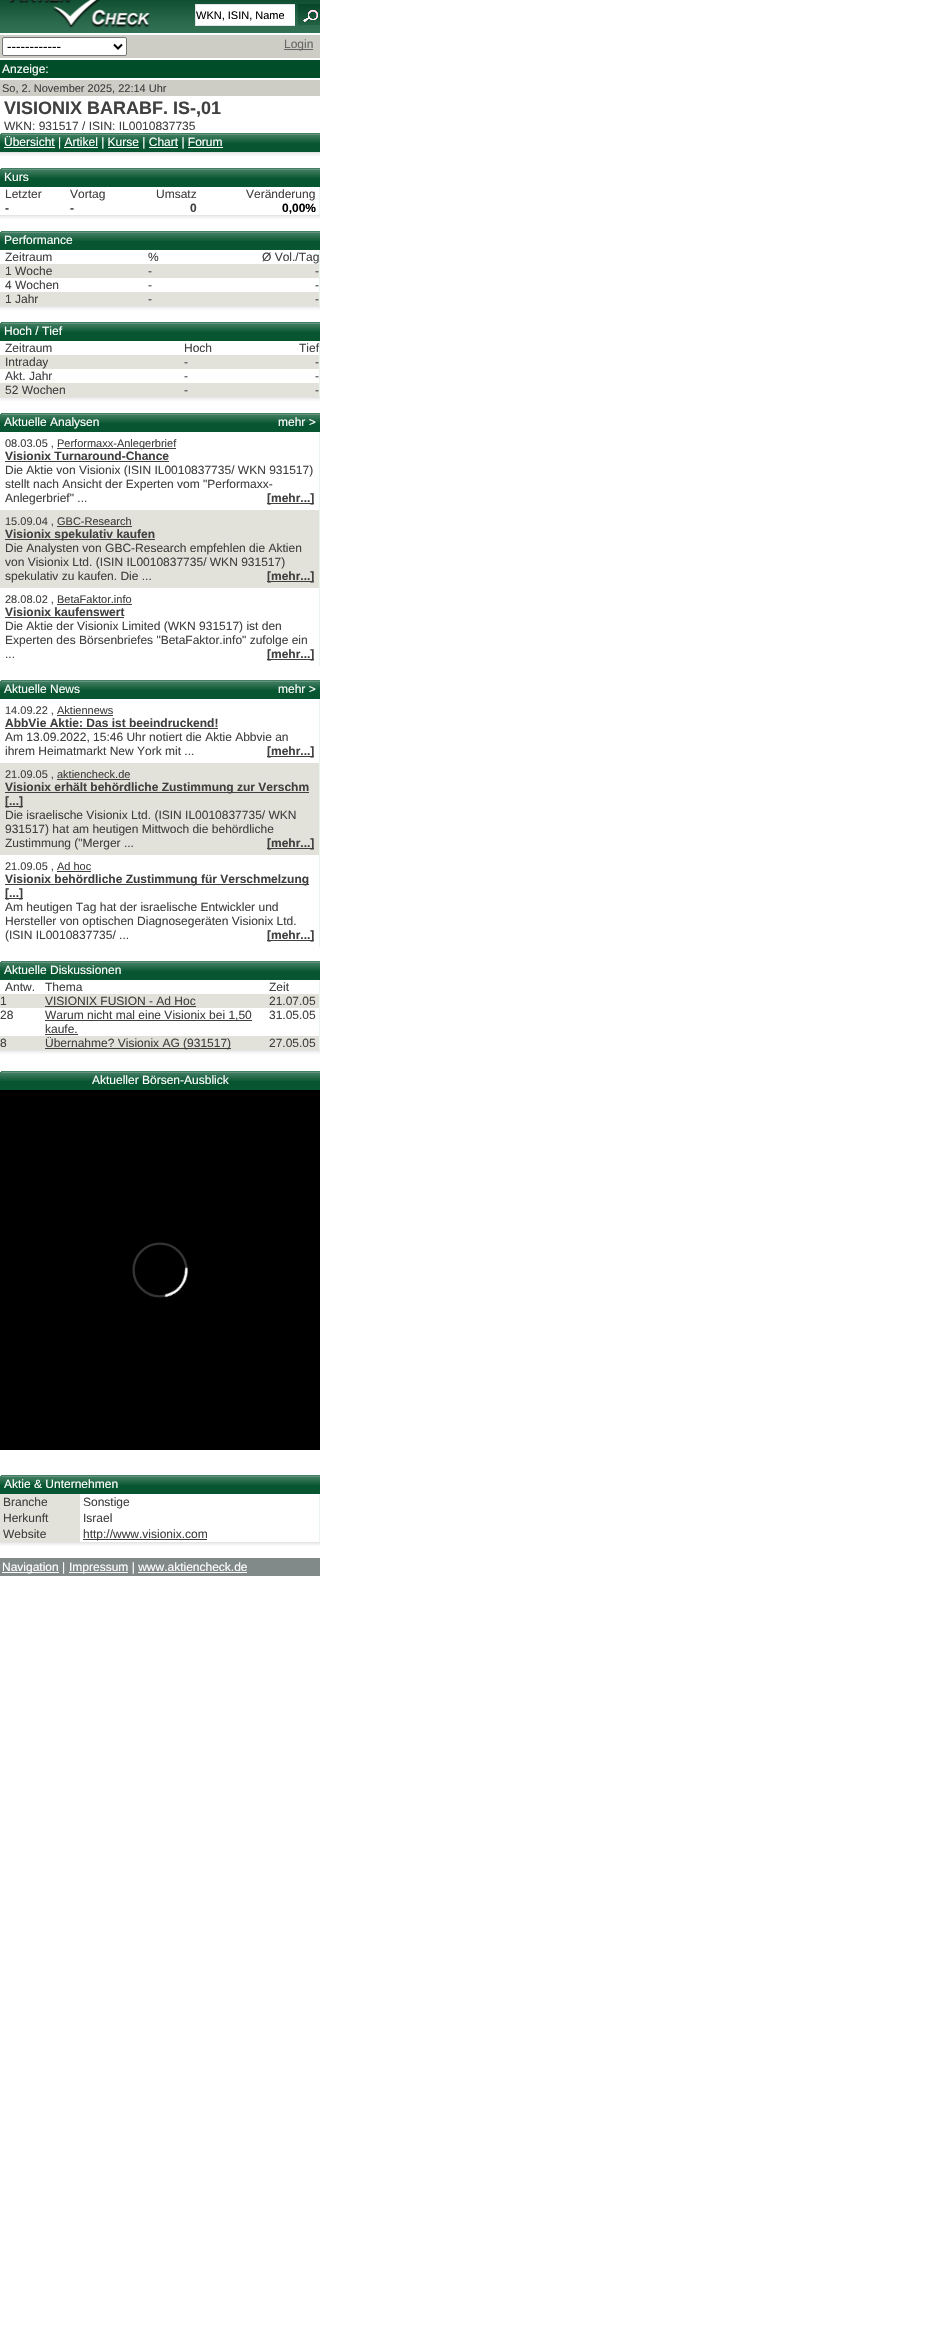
#include "include/core/SkBlurTypes.h"
#include "include/core/SkCanvas.h"
#include "include/core/SkData.h"
#include "include/core/SkFont.h"
#include "include/core/SkFontMgr.h"
#include "include/core/SkImage.h"
#include "include/core/SkMaskFilter.h"
#include "include/core/SkPaint.h"
#include "include/core/SkPathBuilder.h"
#include "include/core/SkTextBlob.h"
#include "include/effects/SkDashPathEffect.h"
#include "include/effects/SkGradientShader.h"
#include "include/utils/SkParsePath.h"

extern sk_sp<SkFontMgr> fontMgr;

static SkFont font(const char* family, int weight, float size, bool italic = false) {
    SkFontStyle style(weight, SkFontStyle::kNormal_Width,
        italic ? SkFontStyle::kItalic_Slant : SkFontStyle::kUpright_Slant);
    SkFont result(fontMgr->matchFamilyStyle(family, style), size);
    result.setSubpixel(true);
    return result;
}

static void drawLabel(SkCanvas* canvas, const char* s, float x, float y, const SkFont& font, SkColor color) {
    SkPaint ink(SkColor4f::FromColor(color));
    ink.setAntiAlias(true);
    canvas->drawString(s, x, y, font, ink);
}

static void fillRect(SkCanvas* canvas, float x, float y, float w, float h, SkColor color) {
    SkPaint ink(SkColor4f::FromColor(color));
    ink.setAntiAlias(true);
    canvas->drawRect(SkRect::MakeXYWH(x, y, w, h), ink);
}

static void drawPhoto(SkCanvas* canvas, const char* path, float x, float y, float w, float h) {
    auto image = SkImages::DeferredFromEncodedData(SkData::MakeFromFileName(path));
    canvas->drawImageRect(image, SkRect::MakeXYWH(x, y, w, h), SkSamplingOptions());
}

static SkPath parsePath(const char* data, bool evenOdd = false) {
    SkPath result = *SkParsePath::FromSVGString(data);
    if (evenOdd) result.setFillType(SkPathFillType::kEvenOdd);
    return result;
}

void draw(SkCanvas* canvas) {
    SkPaint paint;
    paint.setAntiAlias(true);
    canvas->clear(0xFFFFFFFF);
    drawPhoto(canvas, "assets/img1.png", 0, 0, 320, 33);
    drawPhoto(canvas, "assets/img2.png", 9, 0, 141, 28);
    fillRect(canvas, 196, 5, 99, 20, 0xFFFFFFFF);
    fillRect(canvas, 195, 4, 100, 1, 0xFFE2E3EA);
    fillRect(canvas, 195, 25, 100, 1, 0xFFE2E3EA);
    fillRect(canvas, 195, 4, 1, 22, 0xFFE2E3EA);
    SkFont font1 = font("Liberation Sans", 400, 11);
    drawLabel(canvas, "WKN, ISIN, Name", 196, 19, font1, 0xFF000000);
    drawPhoto(canvas, "assets/img3.png", 298, 4, 22, 21);
    fillRect(canvas, 0, 35, 320, 23, 0xFFCDCDC5);
    paint.setColor(0xFFFFFFFF);
    canvas->drawRoundRect(SkRect::MakeXYWH(2.5f, 37.5f, 124, 18), 1.5f, 1.5f, paint);
    paint.setStroke(true);
    paint.setStrokeWidth(1);
    paint.setColor(0xFF767676);
    canvas->drawRoundRect(SkRect::MakeXYWH(2.5f, 37.5f, 124, 18), 1.5f, 1.5f, paint);
    paint.setStrokeWidth(2);
    paint.setColor(0xFF000000);
    canvas->drawPath(parsePath("M114 44.5L118 48.5L122 44.5"), paint);
    SkFont font2 = font("Liberation Sans", 400, 13.5f);
    drawLabel(canvas, "------------", 7, 51, font2, 0xFF000000);
    fillRect(canvas, 284, 49, 29, 1, 0xFF666666);
    SkFont font3 = font("Liberation Sans", 400, 12);
    drawLabel(canvas, "Login", 284, 48, font3, 0xFF666666);
    fillRect(canvas, 0, 60, 320, 18, 0xFF004E29);
    drawLabel(canvas, "Anzeige:", 2, 73, font3, 0xFFFFFFFF);
    fillRect(canvas, 0, 80, 320, 16, 0xFFCDCDC5);
    drawLabel(canvas, "So, 2. November 2025, 22:14 Uhr", 2, 92, font1, 0xFF404040);
    drawPhoto(canvas, "assets/img4.png", 0, 152, 320, 4);
    SkFont font4 = font("Liberation Sans", 700, 18);
    drawLabel(canvas, "VISIONIX BARABF. IS-,01", 4, 114, font4, 0xFF404040);
    drawLabel(canvas, "WKN: 931517 / ISIN: IL0010837735", 4, 130, font3, 0xFF404040);
    fillRect(canvas, 0, 143, 320, 9, 0xFF085631);
    drawPhoto(canvas, "assets/img5.png", 0, 133, 320, 10);
    fillRect(canvas, 4, 147, 51, 1, 0xFFFFFFFF);
    drawLabel(canvas, "Übersicht | Artikel | Kurse | Chart | Forum", 4, 146, font3, 0xFFFFFFFF);
    fillRect(canvas, 64, 147, 34, 1, 0xFFFFFFFF);
    fillRect(canvas, 108, 147, 31, 1, 0xFFFFFFFF);
    fillRect(canvas, 149, 147, 29, 1, 0xFFFFFFFF);
    fillRect(canvas, 188, 147, 35, 1, 0xFFFFFFFF);
    drawPhoto(canvas, "assets/img4.png", 0, 215, 320, 4);
    fillRect(canvas, 0, 178, 320, 9, 0xFF085631);
    drawPhoto(canvas, "assets/img5.png", 0, 168, 320, 10);
    drawLabel(canvas, "Kurs", 4, 181, font3, 0xFFFFFFFF);
    fillRect(canvas, 319, 187, 1, 28, 0xFFEBF5ED);
    drawLabel(canvas, "Letzter", 5, 198, font3, 0xFF404040);
    drawLabel(canvas, "Vortag", 70, 198, font3, 0xFF404040);
    drawLabel(canvas, "Umsatz", 156, 198, font3, 0xFF404040);
    drawLabel(canvas, "Veränderung", 246, 198, font3, 0xFF404040);
    SkFont font5 = font("Liberation Sans", 700, 12);
    drawLabel(canvas, "-", 5, 212, font5, 0xFF404040);
    drawLabel(canvas, "-", 70, 212, font5, 0xFF404040);
    drawLabel(canvas, "0", 190, 212, font5, 0xFF404040);
    drawLabel(canvas, "0,00%", 282, 212, font5, 0xFF000000);
    drawPhoto(canvas, "assets/img4.png", 0, 306, 320, 4);
    fillRect(canvas, 0, 241, 320, 9, 0xFF085631);
    drawPhoto(canvas, "assets/img5.png", 0, 231, 320, 10);
    drawLabel(canvas, "Performance", 4, 244, font3, 0xFFFFFFFF);
    fillRect(canvas, 319, 250, 1, 56, 0xFFEBF5ED);
    drawLabel(canvas, "Zeitraum", 5, 261, font3, 0xFF404040);
    drawLabel(canvas, "%", 148, 261, font3, 0xFF404040);
    drawLabel(canvas, "Ø Vol./Tag", 262, 261, font3, 0xFF404040);
    fillRect(canvas, 0, 264, 319, 14, 0xFFE3E2DA);
    drawLabel(canvas, "1 Woche", 5, 275, font3, 0xFF404040);
    drawLabel(canvas, "-", 148, 275, font3, 0xFF404040);
    drawLabel(canvas, "-", 315, 275, font3, 0xFF404040);
    drawLabel(canvas, "4 Wochen", 5, 289, font3, 0xFF404040);
    drawLabel(canvas, "-", 148, 289, font3, 0xFF404040);
    drawLabel(canvas, "-", 315, 289, font3, 0xFF404040);
    fillRect(canvas, 0, 292, 319, 14, 0xFFE3E2DA);
    drawLabel(canvas, "1 Jahr", 5, 303, font3, 0xFF404040);
    drawLabel(canvas, "-", 148, 303, font3, 0xFF404040);
    drawLabel(canvas, "-", 315, 303, font3, 0xFF404040);
    drawPhoto(canvas, "assets/img4.png", 0, 397, 320, 4);
    fillRect(canvas, 0, 332, 320, 9, 0xFF085631);
    drawPhoto(canvas, "assets/img5.png", 0, 322, 320, 10);
    drawLabel(canvas, "Hoch / Tief", 4, 335, font3, 0xFFFFFFFF);
    fillRect(canvas, 319, 341, 1, 56, 0xFFEBF5ED);
    drawLabel(canvas, "Zeitraum", 5, 352, font3, 0xFF404040);
    drawLabel(canvas, "Hoch", 184, 352, font3, 0xFF404040);
    drawLabel(canvas, "Tief", 299, 352, font3, 0xFF404040);
    fillRect(canvas, 0, 355, 319, 14, 0xFFE3E2DA);
    drawLabel(canvas, "Intraday", 5, 366, font3, 0xFF404040);
    drawLabel(canvas, "-", 184, 366, font3, 0xFF404040);
    drawLabel(canvas, "-", 315, 366, font3, 0xFF404040);
    drawLabel(canvas, "Akt. Jahr", 5, 380, font3, 0xFF404040);
    drawLabel(canvas, "-", 184, 380, font3, 0xFF404040);
    drawLabel(canvas, "-", 315, 380, font3, 0xFF404040);
    fillRect(canvas, 0, 383, 319, 14, 0xFFE3E2DA);
    drawLabel(canvas, "52 Wochen", 5, 394, font3, 0xFF404040);
    drawLabel(canvas, "-", 184, 394, font3, 0xFF404040);
    drawLabel(canvas, "-", 315, 394, font3, 0xFF404040);
    fillRect(canvas, 0, 423, 320, 9, 0xFF085631);
    drawPhoto(canvas, "assets/img5.png", 0, 413, 320, 10);
    drawLabel(canvas, "Aktuelle Analysen", 4, 426, font3, 0xFFFFFFFF);
    drawLabel(canvas, "mehr >", 278, 426, font3, 0xFFFFFFFF);
    fillRect(canvas, 319, 432, 1, 234, 0xFFEBF5ED);
    drawLabel(canvas, "08.03.05 ,", 5, 447, font1, 0xFF404040);
    fillRect(canvas, 57, 448, 119, 1, 0xFF404040);
    drawLabel(canvas, "Performaxx-Anlegerbrief", 57, 447, font1, 0xFF404040);
    drawLabel(canvas, "Visionix Turnaround-Chance", 5, 460, font5, 0xFF404040);
    fillRect(canvas, 5, 461, 164, 1, 0xFF404040);
    drawLabel(canvas, "Die Aktie von Visionix (ISIN IL0010837735/ WKN 931517)", 5, 474, font3, 0xFF404040);
    drawLabel(canvas, "stellt nach Ansicht der Experten vom \"Performaxx-", 5, 488, font3, 0xFF404040);
    drawLabel(canvas, "Anlegerbrief\" ...", 5, 502, font3, 0xFF404040);
    fillRect(canvas, 267, 503, 47, 1, 0xFF404040);
    drawLabel(canvas, "[mehr...]", 267, 502, font5, 0xFF404040);
    fillRect(canvas, 0, 510, 319, 78, 0xFFE3E2DA);
    drawLabel(canvas, "15.09.04 , GBC-Research", 5, 525, font1, 0xFF404040);
    fillRect(canvas, 57, 526, 75, 1, 0xFF404040);
    fillRect(canvas, 5, 539, 150, 1, 0xFF404040);
    drawLabel(canvas, "Visionix spekulativ kaufen", 5, 538, font5, 0xFF404040);
    drawLabel(canvas, "Die Analysten von GBC-Research empfehlen die Aktien", 5, 552, font3, 0xFF404040);
    drawLabel(canvas, "von Visionix Ltd. (ISIN IL0010837735/ WKN 931517)", 5, 566, font3, 0xFF404040);
    drawLabel(canvas, "spekulativ zu kaufen. Die ...", 5, 580, font3, 0xFF404040);
    fillRect(canvas, 267, 581, 47, 1, 0xFF404040);
    drawLabel(canvas, "[mehr...]", 267, 580, font5, 0xFF404040);
    drawLabel(canvas, "28.08.02 , BetaFaktor.info", 5, 603, font1, 0xFF404040);
    fillRect(canvas, 57, 604, 75, 1, 0xFF404040);
    drawLabel(canvas, "Visionix kaufenswert", 5, 616, font5, 0xFF404040);
    fillRect(canvas, 5, 617, 119, 1, 0xFF404040);
    drawLabel(canvas, "Die Aktie der Visionix Limited (WKN 931517) ist den", 5, 630, font3, 0xFF404040);
    drawLabel(canvas, "Experten des Börsenbriefes \"BetaFaktor.info\" zufolge ein", 5, 644, font3, 0xFF404040);
    drawLabel(canvas, "...", 5, 658, font3, 0xFF404040);
    fillRect(canvas, 267, 659, 47, 1, 0xFF404040);
    drawLabel(canvas, "[mehr...]", 267, 658, font5, 0xFF404040);
    fillRect(canvas, 0, 690, 320, 9, 0xFF085631);
    drawPhoto(canvas, "assets/img5.png", 0, 680, 320, 10);
    drawLabel(canvas, "Aktuelle News", 4, 693, font3, 0xFFFFFFFF);
    drawLabel(canvas, "mehr >", 278, 693, font3, 0xFFFFFFFF);
    fillRect(canvas, 319, 699, 1, 248, 0xFFEBF5ED);
    drawLabel(canvas, "14.09.22 , Aktiennews", 5, 714, font1, 0xFF404040);
    fillRect(canvas, 57, 715, 56, 1, 0xFF404040);
    drawLabel(canvas, "AbbVie Aktie: Das ist beeindruckend!", 5, 727, font5, 0xFF404040);
    fillRect(canvas, 5, 728, 213, 1, 0xFF404040);
    drawLabel(canvas, "Am 13.09.2022, 15:46 Uhr notiert die Aktie Abbvie an", 5, 741, font3, 0xFF404040);
    drawLabel(canvas, "ihrem Heimatmarkt New York mit ...", 5, 755, font3, 0xFF404040);
    fillRect(canvas, 267, 756, 47, 1, 0xFF404040);
    drawLabel(canvas, "[mehr...]", 267, 755, font5, 0xFF404040);
    fillRect(canvas, 0, 763, 319, 92, 0xFFE3E2DA);
    drawLabel(canvas, "21.09.05 , aktiencheck.de", 5, 778, font1, 0xFF404040);
    fillRect(canvas, 57, 779, 73, 1, 0xFF404040);
    fillRect(canvas, 5, 792, 304, 1, 0xFF404040);
    drawLabel(canvas, "Visionix erhält behördliche Zustimmung zur Verschm", 5, 791, font5, 0xFF404040);
    fillRect(canvas, 5, 806, 18, 1, 0xFF404040);
    drawLabel(canvas, "[...]", 5, 805, font5, 0xFF404040);
    drawLabel(canvas, "Die israelische Visionix Ltd. (ISIN IL0010837735/ WKN", 5, 819, font3, 0xFF404040);
    drawLabel(canvas, "931517) hat am heutigen Mittwoch die behördliche", 5, 833, font3, 0xFF404040);
    drawLabel(canvas, "Zustimmung (\"Merger ...", 5, 847, font3, 0xFF404040);
    fillRect(canvas, 267, 848, 47, 1, 0xFF404040);
    drawLabel(canvas, "[mehr...]", 267, 847, font5, 0xFF404040);
    drawLabel(canvas, "21.09.05 , Ad hoc", 5, 870, font1, 0xFF404040);
    fillRect(canvas, 57, 871, 34, 1, 0xFF404040);
    fillRect(canvas, 5, 884, 304, 1, 0xFF404040);
    drawLabel(canvas, "Visionix behördliche Zustimmung für Verschmelzung", 5, 883, font5, 0xFF404040);
    fillRect(canvas, 5, 898, 18, 1, 0xFF404040);
    drawLabel(canvas, "[...]", 5, 897, font5, 0xFF404040);
    drawLabel(canvas, "Am heutigen Tag hat der israelische Entwickler und", 5, 911, font3, 0xFF404040);
    drawLabel(canvas, "Hersteller von optischen Diagnosegeräten Visionix Ltd.", 5, 925, font3, 0xFF404040);
    drawLabel(canvas, "(ISIN IL0010837735/ ...", 5, 939, font3, 0xFF404040);
    fillRect(canvas, 267, 940, 47, 1, 0xFF404040);
    drawLabel(canvas, "[mehr...]", 267, 939, font5, 0xFF404040);
    drawPhoto(canvas, "assets/img4.png", 0, 1050, 320, 4);
    fillRect(canvas, 0, 971, 320, 9, 0xFF085631);
    drawPhoto(canvas, "assets/img5.png", 0, 961, 320, 10);
    drawLabel(canvas, "Aktuelle Diskussionen", 4, 974, font3, 0xFFFFFFFF);
    fillRect(canvas, 319, 980, 1, 70, 0xFFEBF5ED);
    drawLabel(canvas, "Antw.", 5, 991, font3, 0xFF404040);
    drawLabel(canvas, "Thema", 45, 991, font3, 0xFF404040);
    drawLabel(canvas, "Zeit", 269, 991, font3, 0xFF404040);
    fillRect(canvas, 0, 994, 319, 14, 0xFFE3E2DA);
    drawLabel(canvas, "1", 0, 1005, font3, 0xFF404040);
    drawLabel(canvas, "VISIONIX FUSION - Ad Hoc", 45, 1005, font3, 0xFF404040);
    fillRect(canvas, 45, 1006, 151, 1, 0xFF404040);
    drawLabel(canvas, "21.07.05", 269, 1005, font3, 0xFF404040);
    drawLabel(canvas, "28", 0, 1019, font3, 0xFF404040);
    fillRect(canvas, 45, 1020, 207, 1, 0xFF404040);
    drawLabel(canvas, "Warum nicht mal eine Visionix bei 1,50", 45, 1019, font3, 0xFF404040);
    drawLabel(canvas, "kaufe.", 45, 1033, font3, 0xFF404040);
    fillRect(canvas, 45, 1034, 33, 1, 0xFF404040);
    drawLabel(canvas, "31.05.05", 269, 1019, font3, 0xFF404040);
    fillRect(canvas, 0, 1036, 319, 14, 0xFFE3E2DA);
    drawLabel(canvas, "8", 0, 1047, font3, 0xFF404040);
    fillRect(canvas, 45, 1048, 186, 1, 0xFF404040);
    drawLabel(canvas, "Übernahme? Visionix AG (931517)", 45, 1047, font3, 0xFF404040);
    drawLabel(canvas, "27.05.05", 269, 1047, font3, 0xFF404040);
    fillRect(canvas, 0, 1081, 320, 9, 0xFF085631);
    drawPhoto(canvas, "assets/img5.png", 0, 1071, 320, 10);
    drawLabel(canvas, "Aktueller Börsen-Ausblick", 92, 1084, font3, 0xFFFFFFFF);
    drawPhoto(canvas, "assets/img6.png", 0, 1090, 320, 360);
    drawPhoto(canvas, "assets/img4.png", 0, 1542, 320, 4);
    fillRect(canvas, 0, 1485, 320, 9, 0xFF085631);
    drawPhoto(canvas, "assets/img5.png", 0, 1475, 320, 10);
    drawLabel(canvas, "Aktie & Unternehmen", 4, 1488, font3, 0xFFFFFFFF);
    fillRect(canvas, 319, 1494, 1, 48, 0xFFEBF5ED);
    fillRect(canvas, 0, 1494, 80, 48, 0xFFE3E2DA);
    drawLabel(canvas, "Branche", 3, 1506, font3, 0xFF404040);
    drawLabel(canvas, "Sonstige", 83, 1506, font3, 0xFF404040);
    drawLabel(canvas, "Herkunft", 3, 1522, font3, 0xFF404040);
    drawLabel(canvas, "Israel", 83, 1522, font3, 0xFF404040);
    drawLabel(canvas, "Website", 3, 1538, font3, 0xFF404040);
    fillRect(canvas, 83, 1539, 124, 1, 0xFF404040);
    drawLabel(canvas, "http://www.visionix.com", 83, 1538, font3, 0xFF404040);
    fillRect(canvas, 0, 1558, 320, 18, 0xFF818A89);
    fillRect(canvas, 2, 1572, 57, 1, 0xFFFFFFFF);
    drawLabel(canvas, "Navigation |", 2, 1571, font3, 0xFFFFFFFF);
    fillRect(canvas, 69, 1572, 59, 1, 0xFFFFFFFF);
    drawLabel(canvas, "Impressum | www.aktiencheck.de", 69, 1571, font3, 0xFFFFFFFF);
    fillRect(canvas, 138, 1572, 109, 1, 0xFFFFFFFF);
}
